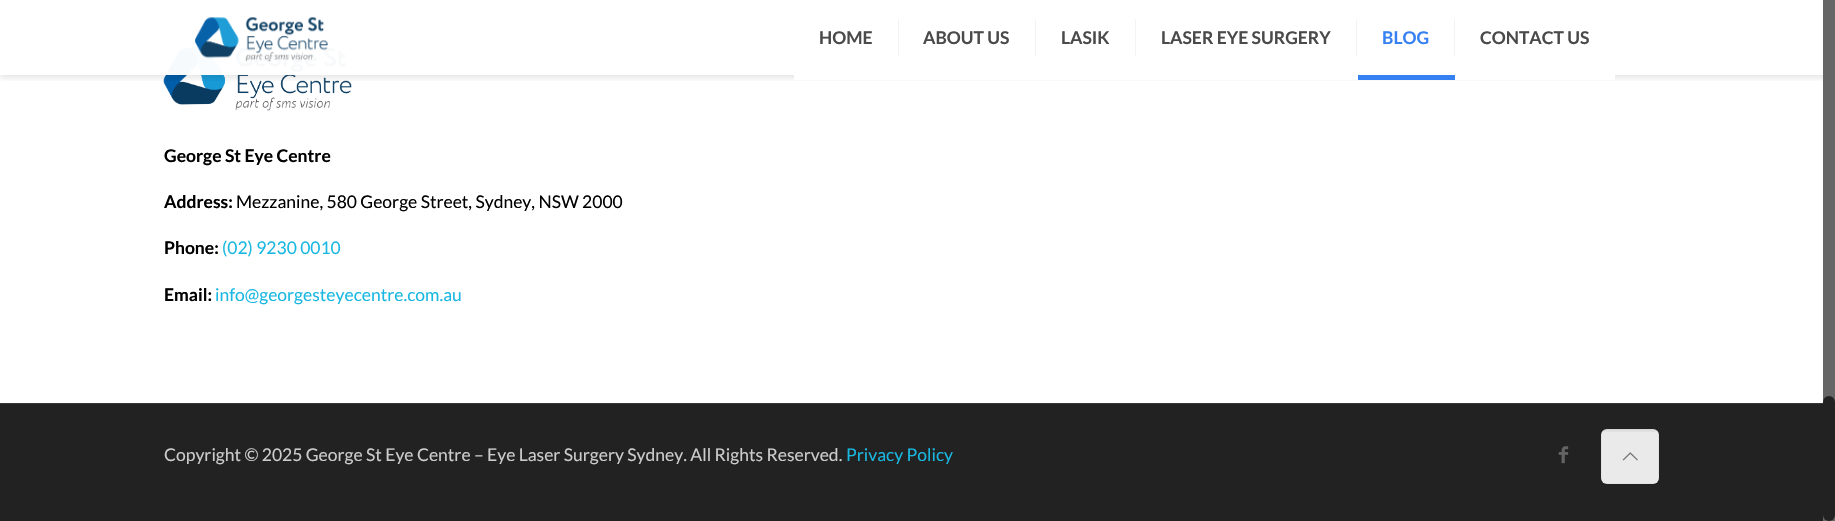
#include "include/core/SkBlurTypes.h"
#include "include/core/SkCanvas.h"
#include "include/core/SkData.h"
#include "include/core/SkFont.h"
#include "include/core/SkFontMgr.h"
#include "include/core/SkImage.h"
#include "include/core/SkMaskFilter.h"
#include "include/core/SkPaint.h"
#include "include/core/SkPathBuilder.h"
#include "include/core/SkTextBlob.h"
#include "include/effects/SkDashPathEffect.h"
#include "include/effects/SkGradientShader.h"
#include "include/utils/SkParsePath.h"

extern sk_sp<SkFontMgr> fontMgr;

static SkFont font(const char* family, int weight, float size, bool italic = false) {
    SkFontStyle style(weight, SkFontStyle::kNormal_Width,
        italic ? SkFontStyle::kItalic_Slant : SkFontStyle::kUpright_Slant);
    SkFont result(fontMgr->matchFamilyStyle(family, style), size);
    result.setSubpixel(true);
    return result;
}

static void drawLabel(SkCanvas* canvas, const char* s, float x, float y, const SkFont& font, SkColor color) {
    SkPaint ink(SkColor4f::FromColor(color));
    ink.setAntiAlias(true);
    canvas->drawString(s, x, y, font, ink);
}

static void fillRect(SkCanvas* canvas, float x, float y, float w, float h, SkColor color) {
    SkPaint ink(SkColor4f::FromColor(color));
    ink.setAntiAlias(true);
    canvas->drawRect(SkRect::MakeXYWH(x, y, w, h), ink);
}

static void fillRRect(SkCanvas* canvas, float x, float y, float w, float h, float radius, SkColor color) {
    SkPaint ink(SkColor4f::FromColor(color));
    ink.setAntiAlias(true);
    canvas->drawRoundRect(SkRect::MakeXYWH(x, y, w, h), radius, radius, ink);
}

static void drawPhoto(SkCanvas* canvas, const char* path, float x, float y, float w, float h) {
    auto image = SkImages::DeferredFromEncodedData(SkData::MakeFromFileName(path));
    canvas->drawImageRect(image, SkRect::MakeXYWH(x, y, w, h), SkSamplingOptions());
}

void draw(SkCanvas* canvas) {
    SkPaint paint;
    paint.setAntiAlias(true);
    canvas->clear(0xFFFCFCFC);
    fillRect(canvas, 1308, 0, 1, 4, 0xFFE8E8E8);
    fillRect(canvas, 1309, 0, 514, 4, 0xFFF9F9F9);
    fillRect(canvas, 0, 4, 1823, 399, 0xFFFFFFFF);
    drawPhoto(canvas, "assets/img2.png", 163, 47, 189, 64);
    canvas->save();
    canvas->clipRect(SkRect::MakeXYWH(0, 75, 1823, 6));
    paint.setColor(0x1A000000);
    paint.setMaskFilter(SkMaskFilter::MakeBlur(kNormal_SkBlurStyle, 3));
    canvas->drawRect(SkRect::MakeXYWH(0, 3, 1835, 75), paint);
    paint.setMaskFilter(nullptr);
    canvas->restore();
    fillRect(canvas, 0, 0, 1823, 75, 0xF7FFFFFF);
    drawPhoto(canvas, "assets/img1.png", 195, 17, 133, 45);
    fillRect(canvas, 898, 19, 1, 37, 0xFFF3F3F3);
    SkFont font1 = font("Lato", 700, 17.5f);
    drawLabel(canvas, "HOME", 819, 44, font1, 0xFF4A4A4A);
    fillRect(canvas, 794, 75, 564, 5, 0xFFFFFFFF);
    fillRect(canvas, 1035, 19, 1, 37, 0xFFF3F3F3);
    drawLabel(canvas, "ABOUT US", 923, 44, font1, 0xFF4A4A4A);
    fillRect(canvas, 1135, 19, 1, 37, 0xFFF3F3F3);
    drawLabel(canvas, "LASIK", 1061, 44, font1, 0xFF4A4A4A);
    fillRect(canvas, 1356, 19, 1, 37, 0xFFF3F3F3);
    drawLabel(canvas, "LASER EYE SURGERY", 1161, 44, font1, 0xFF4A4A4A);
    fillRect(canvas, 1454, 19, 1, 37, 0xFFF3F3F3);
    drawLabel(canvas, "BLOG", 1382, 44, font1, 0xFF3681F2);
    fillRect(canvas, 1358, 75, 97, 5, 0xFF3681F2);
    drawLabel(canvas, "CONTACT US", 1480, 44, font1, 0xFF4A4A4A);
    fillRect(canvas, 1455, 75, 160, 5, 0xFFFFFFFF);
    fillRect(canvas, 0, 404, 1823, 117, 0xFF222222);
    drawLabel(canvas, "George St Eye Centre", 164, 162, font1, 0xFF000000);
    drawLabel(canvas, "Address:", 164, 208, font1, 0xFF000000);
    SkFont font2 = font("Lato", 400, 17.5f);
    drawLabel(canvas, "Mezzanine, 580 George Street, Sydney, NSW 2000", 236, 208, font2, 0xFF000000);
    drawLabel(canvas, "Phone:", 164, 254, font1, 0xFF000000);
    drawLabel(canvas, "(02) 9230 0010", 222, 254, font2, 0xFF1AB8E1);
    drawLabel(canvas, "Email:", 164, 301, font1, 0xFF000000);
    drawLabel(canvas, "info@georgesteyecentre.com.au", 215, 301, font2, 0xFF1AB8E1);
    fillRect(canvas, 0, 403, 1823, 1, 0xFF383838);
    drawLabel(canvas, "Copyright © 2025 George St Eye Centre – Eye Laser Surgery Sydney. All Rights Reserved.", 164, 461, font2, 0xFFCCCCCC);
    drawLabel(canvas, "Privacy Policy", 846, 461, font2, 0xFF1AB8E1);
    drawPhoto(canvas, "assets/img3.png", 1558, 446, 11, 18);
    fillRRect(canvas, 1601, 429, 58, 55, 6, 0xFFF7F7F7);
    drawPhoto(canvas, "assets/img4.png", 1603, 429, 54, 3);
    paint.setStroke(true);
    paint.setStrokeWidth(1);
    paint.setColor(0x08000000);
    canvas->drawRect(SkRect::MakeXYWH(1601.5f, 429.5f, 57, 54), paint);
    fillRect(canvas, 1601, 429, 58, 55, 0x0D000000);
    drawPhoto(canvas, "assets/img5.png", 1622, 452, 16, 9);
    fillRect(canvas, 1823, 0, 12, 521, 0xFF666666);
    fillRRect(canvas, 1823, 396, 12, 125, 6, 0xFF222222);
}
